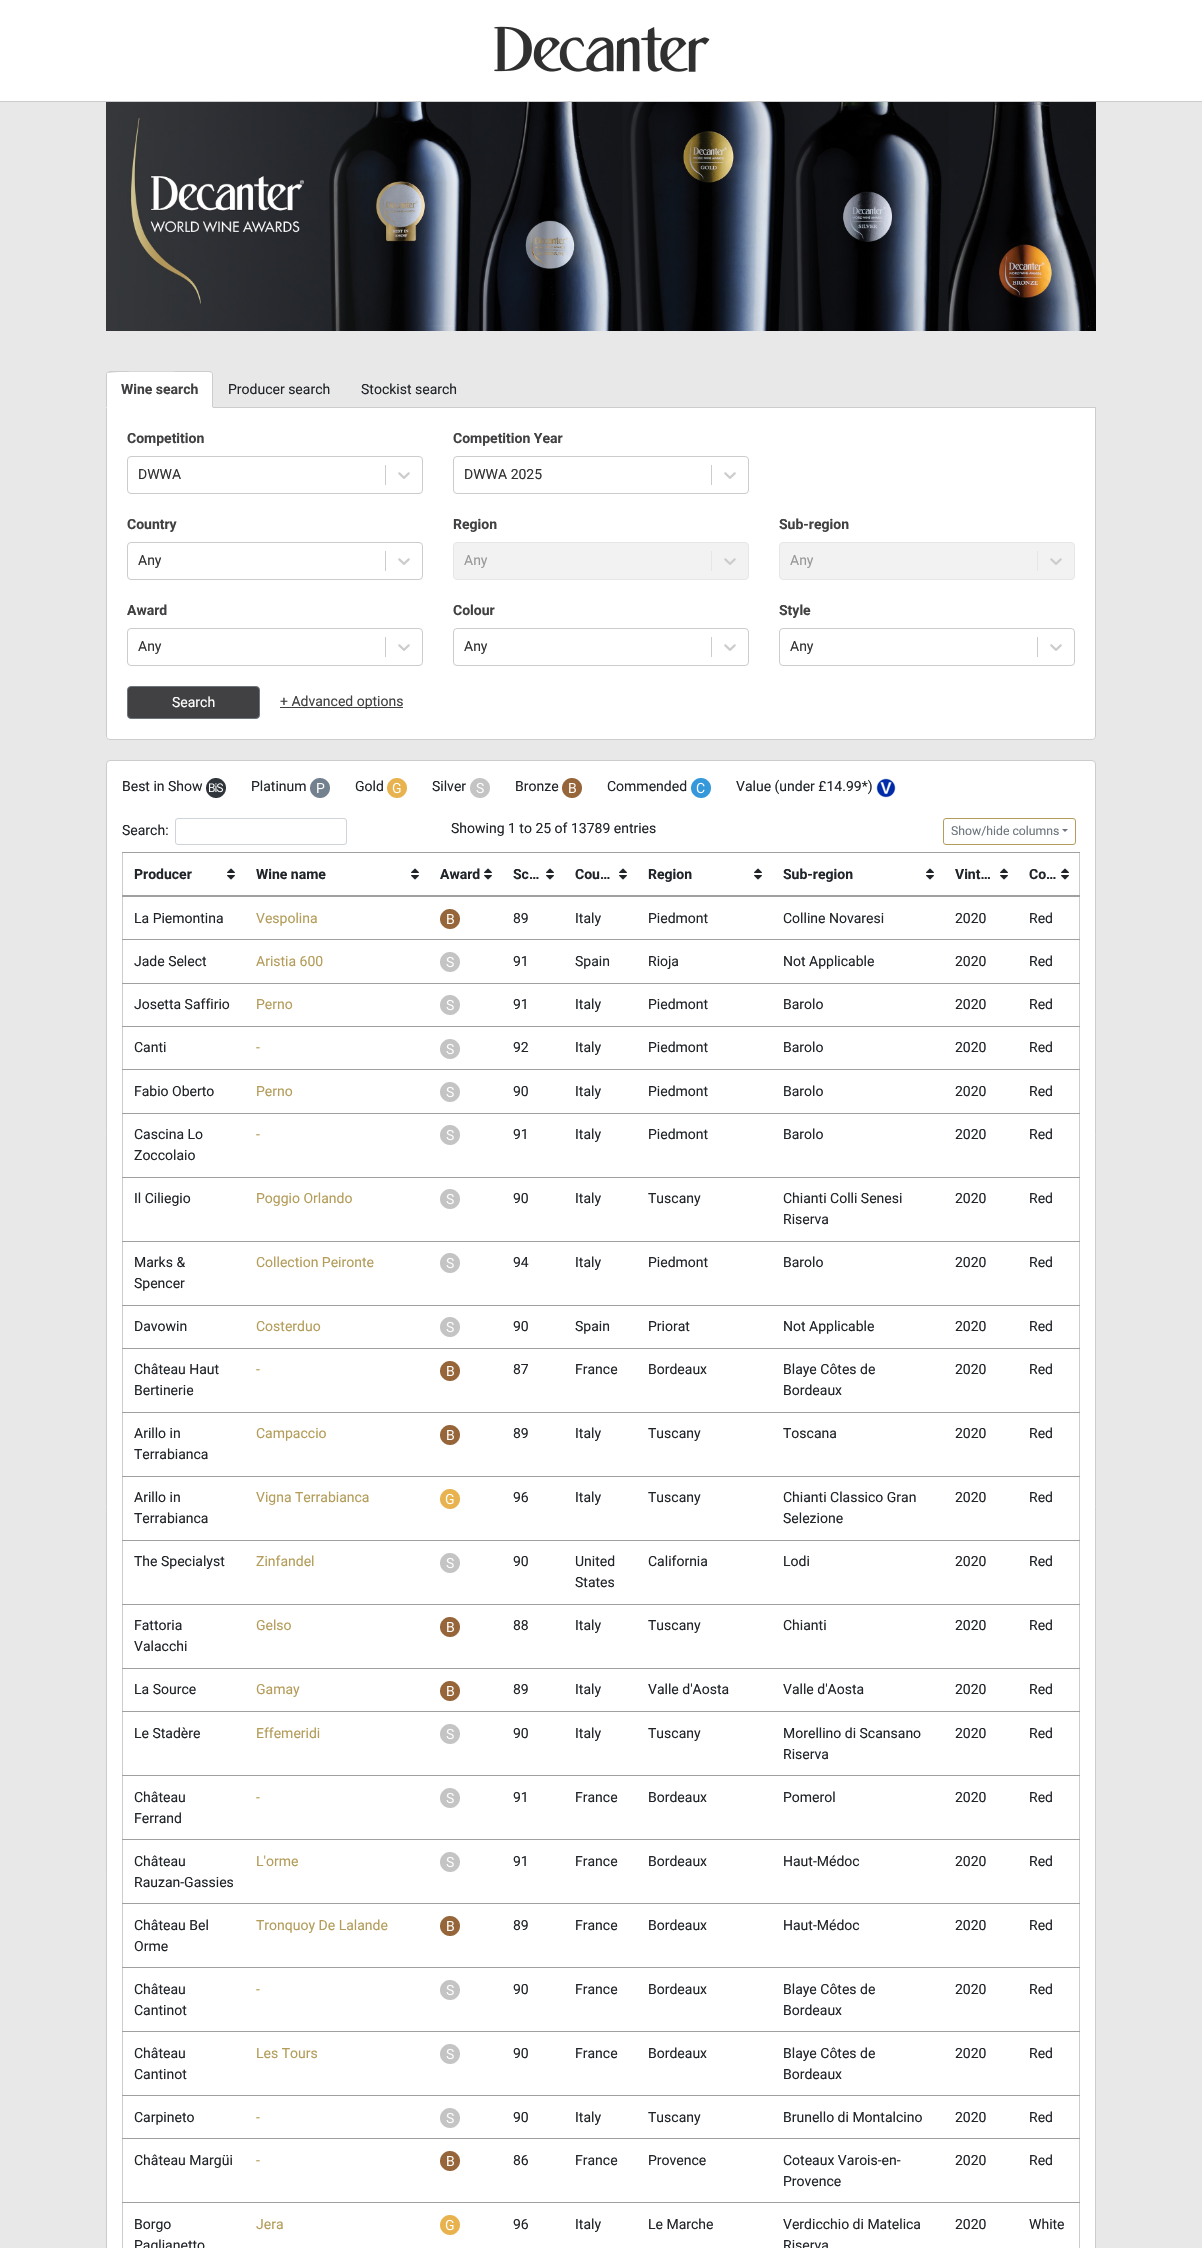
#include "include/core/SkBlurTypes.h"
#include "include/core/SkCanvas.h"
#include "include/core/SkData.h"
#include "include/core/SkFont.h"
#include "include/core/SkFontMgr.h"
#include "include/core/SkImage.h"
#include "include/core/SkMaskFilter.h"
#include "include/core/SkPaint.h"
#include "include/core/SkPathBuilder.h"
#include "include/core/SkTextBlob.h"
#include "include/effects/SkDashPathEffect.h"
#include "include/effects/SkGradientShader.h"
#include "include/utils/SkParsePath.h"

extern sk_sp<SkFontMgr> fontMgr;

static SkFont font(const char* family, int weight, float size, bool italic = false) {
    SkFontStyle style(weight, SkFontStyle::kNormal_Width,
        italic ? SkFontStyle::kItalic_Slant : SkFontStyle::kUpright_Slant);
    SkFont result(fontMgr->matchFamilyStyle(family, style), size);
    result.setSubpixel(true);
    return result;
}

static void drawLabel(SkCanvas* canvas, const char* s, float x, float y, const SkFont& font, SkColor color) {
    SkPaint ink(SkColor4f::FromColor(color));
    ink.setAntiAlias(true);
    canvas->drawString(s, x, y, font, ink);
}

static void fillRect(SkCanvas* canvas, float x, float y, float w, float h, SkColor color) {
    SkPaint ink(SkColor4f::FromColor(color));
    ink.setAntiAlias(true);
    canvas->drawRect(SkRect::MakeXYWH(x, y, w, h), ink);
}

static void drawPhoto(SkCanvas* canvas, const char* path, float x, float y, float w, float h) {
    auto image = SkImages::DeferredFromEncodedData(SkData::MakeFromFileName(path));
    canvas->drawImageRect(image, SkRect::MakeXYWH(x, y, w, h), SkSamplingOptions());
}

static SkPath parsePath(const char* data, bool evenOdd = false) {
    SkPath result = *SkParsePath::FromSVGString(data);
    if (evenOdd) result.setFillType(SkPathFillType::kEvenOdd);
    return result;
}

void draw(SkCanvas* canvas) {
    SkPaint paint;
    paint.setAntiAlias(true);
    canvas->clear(0xFFE8E8E8);
    fillRect(canvas, 0, 0, 1202, 101, 0xFFFFFFFF);
    fillRect(canvas, 0, 101, 1202, 1, 0xFFCCCCCC);
    drawPhoto(canvas, "assets/img1.png", 494, 26, 216, 46);
    drawPhoto(canvas, "assets/img2.png", 106, 102, 990, 229);
    fillRect(canvas, 213, 407, 883, 1, 0xFFCCCCCC);
    paint.setColor(0xFFFFFFFF);
    canvas->drawPath(parsePath("M110 371H209C211 371 213 373 213 375V408H106V375C106 373 108 371 110 371Z"), paint);
    paint.setColor(0xFFCCCCCC);
    canvas->drawPath(parsePath("M110 371L107 372L108 373C110 371 184 372 193 372H210L211 373L212 372L210 371Z"), paint);
    canvas->drawPath(parsePath("M213 408V374L212 372L211.5 372.5L212 374V407Z"), paint);
    paint.setColor(0xFFFFFFFF);
    canvas->drawPath(parsePath("M213 408L212 407H107L106 408Z"), paint);
    paint.setColor(0xFFCCCCCC);
    canvas->drawPath(parsePath("M106 408L107 407V374L107.5 372.5L107 372L106 374Z"), paint);
    SkFont font1 = font("Roboto", 700, 14);
    drawLabel(canvas, "Wine search", 121, 394, font1, 0xFF414042);
    SkFont font2 = font("Roboto", 400, 14);
    drawLabel(canvas, "Producer search", 228, 394, font2, 0xFF212529);
    drawLabel(canvas, "Stockist search", 361, 394, font2, 0xFF212529);
    paint.setColor(0xFFFFFFFF);
    canvas->drawPath(parsePath("M106 408H1096V736C1096 738 1094 740 1092 740H110C108 740 106 738 106 736Z"), paint);
    paint.setColor(0xFFCCCCCC);
    canvas->drawPath(parsePath("M106 408H1096V736C1096 738 1094 740 1092 740H110C108 740 106 738 106 736ZM107 408H1095V736C1095 738 1094 739 1092 739H110C108 739 107 738 107 736Z", true), paint);
    drawLabel(canvas, "Competition", 127, 443, font1, 0xFF414042);
    paint.setStroke(true);
    paint.setStrokeWidth(1);
    canvas->drawRoundRect(SkRect::MakeXYWH(127.5f, 456.5f, 295, 37), 3.5f, 3.5f, paint);
    drawLabel(canvas, "DWWA", 138, 479, font2, 0xFF333333);
    fillRect(canvas, 385, 465, 1, 20, 0xFFCCCCCC);
    drawPhoto(canvas, "assets/img3.png", 398, 472, 12, 7);
    drawLabel(canvas, "Competition Year", 453, 443, font1, 0xFF414042);
    canvas->drawRoundRect(SkRect::MakeXYWH(453.5f, 456.5f, 295, 37), 3.5f, 3.5f, paint);
    drawLabel(canvas, "DWWA 2025", 464, 479, font2, 0xFF333333);
    fillRect(canvas, 711, 465, 1, 20, 0xFFCCCCCC);
    drawPhoto(canvas, "assets/img3.png", 724, 472, 12, 7);
    drawLabel(canvas, "Country", 127, 529, font1, 0xFF414042);
    canvas->drawRoundRect(SkRect::MakeXYWH(127.5f, 542.5f, 295, 37), 3.5f, 3.5f, paint);
    drawLabel(canvas, "Any", 138, 565, font2, 0xFF333333);
    fillRect(canvas, 385, 551, 1, 20, 0xFFCCCCCC);
    drawPhoto(canvas, "assets/img3.png", 398, 558, 12, 7);
    drawLabel(canvas, "Region", 453, 529, font1, 0xFF414042);
    paint.setStroke(false);
    paint.setColor(0xFFF2F2F2);
    canvas->drawRoundRect(SkRect::MakeXYWH(453.5f, 542.5f, 295, 37), 3.5f, 3.5f, paint);
    paint.setStroke(true);
    paint.setColor(0xFFE6E6E6);
    canvas->drawRoundRect(SkRect::MakeXYWH(453.5f, 542.5f, 295, 37), 3.5f, 3.5f, paint);
    drawLabel(canvas, "Any", 464, 565, font2, 0xFF999999);
    fillRect(canvas, 711, 551, 1, 20, 0xFFE6E6E6);
    drawPhoto(canvas, "assets/img4.png", 724, 558, 12, 7);
    drawLabel(canvas, "Sub-region", 779, 529, font1, 0xFF414042);
    paint.setStroke(false);
    paint.setColor(0xFFF2F2F2);
    canvas->drawRoundRect(SkRect::MakeXYWH(779.5f, 542.5f, 295, 37), 3.5f, 3.5f, paint);
    paint.setStroke(true);
    paint.setColor(0xFFE6E6E6);
    canvas->drawRoundRect(SkRect::MakeXYWH(779.5f, 542.5f, 295, 37), 3.5f, 3.5f, paint);
    drawLabel(canvas, "Any", 790, 565, font2, 0xFF999999);
    fillRect(canvas, 1037, 551, 1, 20, 0xFFE6E6E6);
    drawPhoto(canvas, "assets/img4.png", 1050, 558, 12, 7);
    drawLabel(canvas, "Award", 127, 615, font1, 0xFF414042);
    paint.setColor(0xFFCCCCCC);
    canvas->drawRoundRect(SkRect::MakeXYWH(127.5f, 628.5f, 295, 37), 3.5f, 3.5f, paint);
    drawLabel(canvas, "Any", 138, 651, font2, 0xFF333333);
    fillRect(canvas, 385, 637, 1, 20, 0xFFCCCCCC);
    drawPhoto(canvas, "assets/img3.png", 398, 644, 12, 7);
    drawLabel(canvas, "Colour", 453, 615, font1, 0xFF414042);
    canvas->drawRoundRect(SkRect::MakeXYWH(453.5f, 628.5f, 295, 37), 3.5f, 3.5f, paint);
    drawLabel(canvas, "Any", 464, 651, font2, 0xFF333333);
    fillRect(canvas, 711, 637, 1, 20, 0xFFCCCCCC);
    drawPhoto(canvas, "assets/img3.png", 724, 644, 12, 7);
    drawLabel(canvas, "Style", 779, 615, font1, 0xFF414042);
    canvas->drawRoundRect(SkRect::MakeXYWH(779.5f, 628.5f, 295, 37), 3.5f, 3.5f, paint);
    drawLabel(canvas, "Any", 790, 651, font2, 0xFF333333);
    fillRect(canvas, 1037, 637, 1, 20, 0xFFCCCCCC);
    drawPhoto(canvas, "assets/img3.png", 1050, 644, 12, 7);
    paint.setStroke(false);
    paint.setColor(0xFF414042);
    canvas->drawRoundRect(SkRect::MakeXYWH(127.5f, 686.5f, 132, 32), 3.5f, 3.5f, paint);
    paint.setStroke(true);
    paint.setColor(0xFF6C757D);
    canvas->drawRoundRect(SkRect::MakeXYWH(127.5f, 686.5f, 132, 32), 3.5f, 3.5f, paint);
    drawLabel(canvas, "Search", 172, 707, font2, 0xFFFFFFFF);
    fillRect(canvas, 280, 707, 123, 1, 0xFF414042);
    drawLabel(canvas, "+ Advanced options", 280, 706, font2, 0xFF414042);
    paint.setStroke(false);
    paint.setColor(0xFFFFFFFF);
    canvas->drawRoundRect(SkRect::MakeXYWH(106.5f, 760.5f, 989, 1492), 3.5f, 3.5f, paint);
    paint.setStroke(true);
    paint.setColor(0xFFCCCCCC);
    canvas->drawRoundRect(SkRect::MakeXYWH(106.5f, 760.5f, 989, 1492), 3.5f, 3.5f, paint);
    drawLabel(canvas, "Best in Show", 122, 791, font2, 0xFF212529);
    drawPhoto(canvas, "assets/img5.png", 206, 778, 20, 20);
    drawLabel(canvas, "Platinum", 251, 791, font2, 0xFF212529);
    drawPhoto(canvas, "assets/img6.png", 310, 778, 20, 20);
    drawLabel(canvas, "Gold", 355, 791, font2, 0xFF212529);
    drawPhoto(canvas, "assets/img7.png", 387, 778, 20, 20);
    drawLabel(canvas, "Silver", 432, 791, font2, 0xFF212529);
    drawPhoto(canvas, "assets/img8.png", 470, 778, 20, 20);
    drawLabel(canvas, "Bronze", 515, 791, font2, 0xFF212529);
    drawPhoto(canvas, "assets/img9.png", 562, 778, 20, 20);
    drawLabel(canvas, "Commended", 607, 791, font2, 0xFF212529);
    drawPhoto(canvas, "assets/img10.png", 691, 778, 20, 20);
    drawLabel(canvas, "Value (under £14.99*)", 736, 791, font2, 0xFF212529);
    drawPhoto(canvas, "assets/img11.png", 876, 778, 20, 20);
    drawLabel(canvas, "Search:", 122, 835, font2, 0xFF212529);
    paint.setColor(0xFFCED4DA);
    canvas->drawRoundRect(SkRect::MakeXYWH(175.5f, 818.5f, 171, 26), 2.5f, 2.5f, paint);
    drawLabel(canvas, "Showing 1 to 25 of 13789 entries", 451, 833, font2, 0xFF212529);
    paint.setColor(0xFFB49D5A);
    canvas->drawRoundRect(SkRect::MakeXYWH(943.5f, 818.5f, 132, 26), 2.5f, 2.5f, paint);
    SkFont font3 = font("Roboto", 400, 12.25f);
    drawLabel(canvas, "Show/hide columns", 951, 835, font3, 0xFF6C757D);
    paint.setStroke(false);
    paint.setColor(0xFF6C757D);
    canvas->drawPath(parsePath("M1062 829H1068L1065 832Z"), paint);
    fillRect(canvas, 1079, 852, 1, 1396, 0xFFCCCCCC);
    fillRect(canvas, 122, 852, 1, 1396, 0xFFCCCCCC);
    drawLabel(canvas, "Producer", 134, 879, font1, 0xFF212529);
    drawPhoto(canvas, "assets/img12.png", 227, 868, 8, 12);
    drawLabel(canvas, "Wine name", 256, 879, font1, 0xFF212529);
    drawPhoto(canvas, "assets/img12.png", 411, 868, 8, 12);
    drawLabel(canvas, "Award", 440, 879, font1, 0xFF212529);
    drawPhoto(canvas, "assets/img12.png", 484, 868, 8, 12);
    drawLabel(canvas, "Sc…", 513, 879, font1, 0xFF212529);
    drawPhoto(canvas, "assets/img12.png", 546, 868, 8, 12);
    drawLabel(canvas, "Cou…", 575, 879, font1, 0xFF212529);
    drawPhoto(canvas, "assets/img12.png", 619, 868, 8, 12);
    drawLabel(canvas, "Region", 648, 879, font1, 0xFF212529);
    drawPhoto(canvas, "assets/img12.png", 754, 868, 8, 12);
    drawLabel(canvas, "Sub-region", 783, 879, font1, 0xFF212529);
    drawPhoto(canvas, "assets/img12.png", 926, 868, 8, 12);
    drawLabel(canvas, "Vint…", 955, 879, font1, 0xFF212529);
    drawPhoto(canvas, "assets/img12.png", 1000, 868, 8, 12);
    fillRect(canvas, 122, 852, 958, 1, 0xFFA0A0A0);
    fillRect(canvas, 122, 895, 958, 2, 0xFFA0A0A0);
    drawLabel(canvas, "Co…", 1029, 879, font1, 0xFF212529);
    drawPhoto(canvas, "assets/img12.png", 1061, 868, 8, 12);
    drawLabel(canvas, "La Piemontina", 134, 923, font2, 0xFF212529);
    drawLabel(canvas, "Vespolina", 256, 923, font2, 0xFFB49D5A);
    drawPhoto(canvas, "assets/img9.png", 440, 909, 20, 20);
    drawLabel(canvas, "89", 513, 923, font2, 0xFF212529);
    drawLabel(canvas, "Italy", 575, 923, font2, 0xFF212529);
    drawLabel(canvas, "Piedmont", 648, 923, font2, 0xFF212529);
    drawLabel(canvas, "Colline Novaresi", 783, 923, font2, 0xFF212529);
    drawLabel(canvas, "2020", 955, 923, font2, 0xFF212529);
    drawLabel(canvas, "Red", 1029, 923, font2, 0xFF212529);
    drawLabel(canvas, "Jade Select", 134, 966, font2, 0xFF212529);
    drawLabel(canvas, "Aristia 600", 256, 966, font2, 0xFFB49D5A);
    drawPhoto(canvas, "assets/img8.png", 440, 952, 20, 20);
    drawLabel(canvas, "91", 513, 966, font2, 0xFF212529);
    drawLabel(canvas, "Spain", 575, 966, font2, 0xFF212529);
    drawLabel(canvas, "Rioja", 648, 966, font2, 0xFF212529);
    drawLabel(canvas, "Not Applicable", 783, 966, font2, 0xFF212529);
    drawLabel(canvas, "2020", 955, 966, font2, 0xFF212529);
    fillRect(canvas, 122, 939, 958, 1, 0xFFA0A0A0);
    drawLabel(canvas, "Red", 1029, 966, font2, 0xFF212529);
    drawLabel(canvas, "Josetta Saffirio", 134, 1009, font2, 0xFF212529);
    drawLabel(canvas, "Perno", 256, 1009, font2, 0xFFB49D5A);
    drawPhoto(canvas, "assets/img8.png", 440, 995, 20, 20);
    drawLabel(canvas, "91", 513, 1009, font2, 0xFF212529);
    drawLabel(canvas, "Italy", 575, 1009, font2, 0xFF212529);
    drawLabel(canvas, "Piedmont", 648, 1009, font2, 0xFF212529);
    drawLabel(canvas, "Barolo", 783, 1009, font2, 0xFF212529);
    drawLabel(canvas, "2020", 955, 1009, font2, 0xFF212529);
    fillRect(canvas, 122, 983, 958, 1, 0xFFA0A0A0);
    drawLabel(canvas, "Red", 1029, 1009, font2, 0xFF212529);
    drawLabel(canvas, "Canti", 134, 1052, font2, 0xFF212529);
    drawLabel(canvas, "-", 256, 1052, font2, 0xFFB49D5A);
    drawPhoto(canvas, "assets/img8.png", 440, 1039, 20, 20);
    drawLabel(canvas, "92", 513, 1052, font2, 0xFF212529);
    drawLabel(canvas, "Italy", 575, 1052, font2, 0xFF212529);
    drawLabel(canvas, "Piedmont", 648, 1052, font2, 0xFF212529);
    drawLabel(canvas, "Barolo", 783, 1052, font2, 0xFF212529);
    drawLabel(canvas, "2020", 955, 1052, font2, 0xFF212529);
    fillRect(canvas, 122, 1026, 958, 1, 0xFFA0A0A0);
    drawLabel(canvas, "Red", 1029, 1052, font2, 0xFF212529);
    drawLabel(canvas, "Fabio Oberto", 134, 1096, font2, 0xFF212529);
    drawLabel(canvas, "Perno", 256, 1096, font2, 0xFFB49D5A);
    drawPhoto(canvas, "assets/img8.png", 440, 1082, 20, 20);
    drawLabel(canvas, "90", 513, 1096, font2, 0xFF212529);
    drawLabel(canvas, "Italy", 575, 1096, font2, 0xFF212529);
    drawLabel(canvas, "Piedmont", 648, 1096, font2, 0xFF212529);
    drawLabel(canvas, "Barolo", 783, 1096, font2, 0xFF212529);
    drawLabel(canvas, "2020", 955, 1096, font2, 0xFF212529);
    fillRect(canvas, 122, 1069, 958, 1, 0xFFA0A0A0);
    drawLabel(canvas, "Red", 1029, 1096, font2, 0xFF212529);
    drawLabel(canvas, "Cascina Lo", 134, 1139, font2, 0xFF212529);
    drawLabel(canvas, "Zoccolaio", 134, 1160, font2, 0xFF212529);
    drawLabel(canvas, "-", 256, 1139, font2, 0xFFB49D5A);
    drawPhoto(canvas, "assets/img8.png", 440, 1125, 20, 20);
    drawLabel(canvas, "91", 513, 1139, font2, 0xFF212529);
    drawLabel(canvas, "Italy", 575, 1139, font2, 0xFF212529);
    drawLabel(canvas, "Piedmont", 648, 1139, font2, 0xFF212529);
    drawLabel(canvas, "Barolo", 783, 1139, font2, 0xFF212529);
    drawLabel(canvas, "2020", 955, 1139, font2, 0xFF212529);
    fillRect(canvas, 122, 1113, 958, 1, 0xFFA0A0A0);
    drawLabel(canvas, "Red", 1029, 1139, font2, 0xFF212529);
    drawLabel(canvas, "Il Ciliegio", 134, 1203, font2, 0xFF212529);
    drawLabel(canvas, "Poggio Orlando", 256, 1203, font2, 0xFFB49D5A);
    drawPhoto(canvas, "assets/img8.png", 440, 1189, 20, 20);
    drawLabel(canvas, "90", 513, 1203, font2, 0xFF212529);
    drawLabel(canvas, "Italy", 575, 1203, font2, 0xFF212529);
    drawLabel(canvas, "Tuscany", 648, 1203, font2, 0xFF212529);
    drawLabel(canvas, "Chianti Colli Senesi", 783, 1203, font2, 0xFF212529);
    drawLabel(canvas, "Riserva", 783, 1224, font2, 0xFF212529);
    drawLabel(canvas, "2020", 955, 1203, font2, 0xFF212529);
    fillRect(canvas, 122, 1177, 958, 1, 0xFFA0A0A0);
    drawLabel(canvas, "Red", 1029, 1203, font2, 0xFF212529);
    drawLabel(canvas, "Marks &", 134, 1267, font2, 0xFF212529);
    drawLabel(canvas, "Spencer", 134, 1288, font2, 0xFF212529);
    drawLabel(canvas, "Collection Peironte", 256, 1267, font2, 0xFFB49D5A);
    drawPhoto(canvas, "assets/img8.png", 440, 1253, 20, 20);
    drawLabel(canvas, "94", 513, 1267, font2, 0xFF212529);
    drawLabel(canvas, "Italy", 575, 1267, font2, 0xFF212529);
    drawLabel(canvas, "Piedmont", 648, 1267, font2, 0xFF212529);
    drawLabel(canvas, "Barolo", 783, 1267, font2, 0xFF212529);
    drawLabel(canvas, "2020", 955, 1267, font2, 0xFF212529);
    fillRect(canvas, 122, 1241, 958, 1, 0xFFA0A0A0);
    drawLabel(canvas, "Red", 1029, 1267, font2, 0xFF212529);
    drawLabel(canvas, "Davowin", 134, 1331, font2, 0xFF212529);
    drawLabel(canvas, "Costerduo", 256, 1331, font2, 0xFFB49D5A);
    drawPhoto(canvas, "assets/img8.png", 440, 1317, 20, 20);
    drawLabel(canvas, "90", 513, 1331, font2, 0xFF212529);
    drawLabel(canvas, "Spain", 575, 1331, font2, 0xFF212529);
    drawLabel(canvas, "Priorat", 648, 1331, font2, 0xFF212529);
    drawLabel(canvas, "Not Applicable", 783, 1331, font2, 0xFF212529);
    drawLabel(canvas, "2020", 955, 1331, font2, 0xFF212529);
    fillRect(canvas, 122, 1305, 958, 1, 0xFFA0A0A0);
    drawLabel(canvas, "Red", 1029, 1331, font2, 0xFF212529);
    drawLabel(canvas, "Château Haut", 134, 1374, font2, 0xFF212529);
    drawLabel(canvas, "Bertinerie", 134, 1395, font2, 0xFF212529);
    drawLabel(canvas, "-", 256, 1374, font2, 0xFFB49D5A);
    drawPhoto(canvas, "assets/img9.png", 440, 1361, 20, 20);
    drawLabel(canvas, "87", 513, 1374, font2, 0xFF212529);
    drawLabel(canvas, "France", 575, 1374, font2, 0xFF212529);
    drawLabel(canvas, "Bordeaux", 648, 1374, font2, 0xFF212529);
    drawLabel(canvas, "Blaye Côtes de", 783, 1374, font2, 0xFF212529);
    drawLabel(canvas, "Bordeaux", 783, 1395, font2, 0xFF212529);
    drawLabel(canvas, "2020", 955, 1374, font2, 0xFF212529);
    fillRect(canvas, 122, 1348, 958, 1, 0xFFA0A0A0);
    drawLabel(canvas, "Red", 1029, 1374, font2, 0xFF212529);
    drawLabel(canvas, "Arillo in", 134, 1438, font2, 0xFF212529);
    drawLabel(canvas, "Terrabianca", 134, 1459, font2, 0xFF212529);
    drawLabel(canvas, "Campaccio", 256, 1438, font2, 0xFFB49D5A);
    drawPhoto(canvas, "assets/img9.png", 440, 1425, 20, 20);
    drawLabel(canvas, "89", 513, 1438, font2, 0xFF212529);
    drawLabel(canvas, "Italy", 575, 1438, font2, 0xFF212529);
    drawLabel(canvas, "Tuscany", 648, 1438, font2, 0xFF212529);
    drawLabel(canvas, "Toscana", 783, 1438, font2, 0xFF212529);
    drawLabel(canvas, "2020", 955, 1438, font2, 0xFF212529);
    fillRect(canvas, 122, 1412, 958, 1, 0xFFA0A0A0);
    drawLabel(canvas, "Red", 1029, 1438, font2, 0xFF212529);
    drawLabel(canvas, "Arillo in", 134, 1502, font2, 0xFF212529);
    drawLabel(canvas, "Terrabianca", 134, 1523, font2, 0xFF212529);
    drawLabel(canvas, "Vigna Terrabianca", 256, 1502, font2, 0xFFB49D5A);
    drawPhoto(canvas, "assets/img7.png", 440, 1489, 20, 20);
    drawLabel(canvas, "96", 513, 1502, font2, 0xFF212529);
    drawLabel(canvas, "Italy", 575, 1502, font2, 0xFF212529);
    drawLabel(canvas, "Tuscany", 648, 1502, font2, 0xFF212529);
    drawLabel(canvas, "Chianti Classico Gran", 783, 1502, font2, 0xFF212529);
    drawLabel(canvas, "Selezione", 783, 1523, font2, 0xFF212529);
    drawLabel(canvas, "2020", 955, 1502, font2, 0xFF212529);
    fillRect(canvas, 122, 1476, 958, 1, 0xFFA0A0A0);
    drawLabel(canvas, "Red", 1029, 1502, font2, 0xFF212529);
    drawLabel(canvas, "The Specialyst", 134, 1566, font2, 0xFF212529);
    drawLabel(canvas, "Zinfandel", 256, 1566, font2, 0xFFB49D5A);
    drawPhoto(canvas, "assets/img8.png", 440, 1553, 20, 20);
    drawLabel(canvas, "90", 513, 1566, font2, 0xFF212529);
    drawLabel(canvas, "United", 575, 1566, font2, 0xFF212529);
    drawLabel(canvas, "States", 575, 1587, font2, 0xFF212529);
    drawLabel(canvas, "California", 648, 1566, font2, 0xFF212529);
    drawLabel(canvas, "Lodi", 783, 1566, font2, 0xFF212529);
    drawLabel(canvas, "2020", 955, 1566, font2, 0xFF212529);
    fillRect(canvas, 122, 1540, 958, 1, 0xFFA0A0A0);
    drawLabel(canvas, "Red", 1029, 1566, font2, 0xFF212529);
    drawLabel(canvas, "Fattoria", 134, 1630, font2, 0xFF212529);
    drawLabel(canvas, "Valacchi", 134, 1651, font2, 0xFF212529);
    drawLabel(canvas, "Gelso", 256, 1630, font2, 0xFFB49D5A);
    drawPhoto(canvas, "assets/img9.png", 440, 1617, 20, 20);
    drawLabel(canvas, "88", 513, 1630, font2, 0xFF212529);
    drawLabel(canvas, "Italy", 575, 1630, font2, 0xFF212529);
    drawLabel(canvas, "Tuscany", 648, 1630, font2, 0xFF212529);
    drawLabel(canvas, "Chianti", 783, 1630, font2, 0xFF212529);
    drawLabel(canvas, "2020", 955, 1630, font2, 0xFF212529);
    fillRect(canvas, 122, 1604, 958, 1, 0xFFA0A0A0);
    drawLabel(canvas, "Red", 1029, 1630, font2, 0xFF212529);
    drawLabel(canvas, "La Source", 134, 1694, font2, 0xFF212529);
    drawLabel(canvas, "Gamay", 256, 1694, font2, 0xFFB49D5A);
    drawPhoto(canvas, "assets/img9.png", 440, 1681, 20, 20);
    drawLabel(canvas, "89", 513, 1694, font2, 0xFF212529);
    drawLabel(canvas, "Italy", 575, 1694, font2, 0xFF212529);
    drawLabel(canvas, "Valle d'Aosta", 648, 1694, font2, 0xFF212529);
    drawLabel(canvas, "Valle d'Aosta", 783, 1694, font2, 0xFF212529);
    drawLabel(canvas, "2020", 955, 1694, font2, 0xFF212529);
    fillRect(canvas, 122, 1668, 958, 1, 0xFFA0A0A0);
    drawLabel(canvas, "Red", 1029, 1694, font2, 0xFF212529);
    drawLabel(canvas, "Le Stadère", 134, 1738, font2, 0xFF212529);
    drawLabel(canvas, "Effemeridi", 256, 1738, font2, 0xFFB49D5A);
    drawPhoto(canvas, "assets/img8.png", 440, 1724, 20, 20);
    drawLabel(canvas, "90", 513, 1738, font2, 0xFF212529);
    drawLabel(canvas, "Italy", 575, 1738, font2, 0xFF212529);
    drawLabel(canvas, "Tuscany", 648, 1738, font2, 0xFF212529);
    drawLabel(canvas, "Morellino di Scansano", 783, 1738, font2, 0xFF212529);
    drawLabel(canvas, "Riserva", 783, 1759, font2, 0xFF212529);
    drawLabel(canvas, "2020", 955, 1738, font2, 0xFF212529);
    fillRect(canvas, 122, 1711, 958, 1, 0xFFA0A0A0);
    drawLabel(canvas, "Red", 1029, 1738, font2, 0xFF212529);
    drawLabel(canvas, "Château", 134, 1802, font2, 0xFF212529);
    drawLabel(canvas, "Ferrand", 134, 1823, font2, 0xFF212529);
    drawLabel(canvas, "-", 256, 1802, font2, 0xFFB49D5A);
    drawPhoto(canvas, "assets/img8.png", 440, 1788, 20, 20);
    drawLabel(canvas, "91", 513, 1802, font2, 0xFF212529);
    drawLabel(canvas, "France", 575, 1802, font2, 0xFF212529);
    drawLabel(canvas, "Bordeaux", 648, 1802, font2, 0xFF212529);
    drawLabel(canvas, "Pomerol", 783, 1802, font2, 0xFF212529);
    drawLabel(canvas, "2020", 955, 1802, font2, 0xFF212529);
    fillRect(canvas, 122, 1775, 958, 1, 0xFFA0A0A0);
    drawLabel(canvas, "Red", 1029, 1802, font2, 0xFF212529);
    drawLabel(canvas, "Château", 134, 1866, font2, 0xFF212529);
    drawLabel(canvas, "Rauzan-Gassies", 134, 1887, font2, 0xFF212529);
    drawLabel(canvas, "L'orme", 256, 1866, font2, 0xFFB49D5A);
    drawPhoto(canvas, "assets/img8.png", 440, 1852, 20, 20);
    drawLabel(canvas, "91", 513, 1866, font2, 0xFF212529);
    drawLabel(canvas, "France", 575, 1866, font2, 0xFF212529);
    drawLabel(canvas, "Bordeaux", 648, 1866, font2, 0xFF212529);
    drawLabel(canvas, "Haut-Médoc", 783, 1866, font2, 0xFF212529);
    drawLabel(canvas, "2020", 955, 1866, font2, 0xFF212529);
    fillRect(canvas, 122, 1839, 958, 1, 0xFFA0A0A0);
    drawLabel(canvas, "Red", 1029, 1866, font2, 0xFF212529);
    drawLabel(canvas, "Château Bel", 134, 1930, font2, 0xFF212529);
    drawLabel(canvas, "Orme", 134, 1951, font2, 0xFF212529);
    drawLabel(canvas, "Tronquoy De Lalande", 256, 1930, font2, 0xFFB49D5A);
    drawPhoto(canvas, "assets/img9.png", 440, 1916, 20, 20);
    drawLabel(canvas, "89", 513, 1930, font2, 0xFF212529);
    drawLabel(canvas, "France", 575, 1930, font2, 0xFF212529);
    drawLabel(canvas, "Bordeaux", 648, 1930, font2, 0xFF212529);
    drawLabel(canvas, "Haut-Médoc", 783, 1930, font2, 0xFF212529);
    drawLabel(canvas, "2020", 955, 1930, font2, 0xFF212529);
    fillRect(canvas, 122, 1903, 958, 1, 0xFFA0A0A0);
    drawLabel(canvas, "Red", 1029, 1930, font2, 0xFF212529);
    drawLabel(canvas, "Château", 134, 1994, font2, 0xFF212529);
    drawLabel(canvas, "Cantinot", 134, 2015, font2, 0xFF212529);
    drawLabel(canvas, "-", 256, 1994, font2, 0xFFB49D5A);
    drawPhoto(canvas, "assets/img8.png", 440, 1980, 20, 20);
    drawLabel(canvas, "90", 513, 1994, font2, 0xFF212529);
    drawLabel(canvas, "France", 575, 1994, font2, 0xFF212529);
    drawLabel(canvas, "Bordeaux", 648, 1994, font2, 0xFF212529);
    drawLabel(canvas, "Blaye Côtes de", 783, 1994, font2, 0xFF212529);
    drawLabel(canvas, "Bordeaux", 783, 2015, font2, 0xFF212529);
    drawLabel(canvas, "2020", 955, 1994, font2, 0xFF212529);
    fillRect(canvas, 122, 1967, 958, 1, 0xFFA0A0A0);
    drawLabel(canvas, "Red", 1029, 1994, font2, 0xFF212529);
    drawLabel(canvas, "Château", 134, 2058, font2, 0xFF212529);
    drawLabel(canvas, "Cantinot", 134, 2079, font2, 0xFF212529);
    drawLabel(canvas, "Les Tours", 256, 2058, font2, 0xFFB49D5A);
    drawPhoto(canvas, "assets/img8.png", 440, 2044, 20, 20);
    drawLabel(canvas, "90", 513, 2058, font2, 0xFF212529);
    drawLabel(canvas, "France", 575, 2058, font2, 0xFF212529);
    drawLabel(canvas, "Bordeaux", 648, 2058, font2, 0xFF212529);
    drawLabel(canvas, "Blaye Côtes de", 783, 2058, font2, 0xFF212529);
    drawLabel(canvas, "Bordeaux", 783, 2079, font2, 0xFF212529);
    drawLabel(canvas, "2020", 955, 2058, font2, 0xFF212529);
    fillRect(canvas, 122, 2031, 958, 1, 0xFFA0A0A0);
    drawLabel(canvas, "Red", 1029, 2058, font2, 0xFF212529);
    drawLabel(canvas, "Carpineto", 134, 2122, font2, 0xFF212529);
    drawLabel(canvas, "-", 256, 2122, font2, 0xFFB49D5A);
    drawPhoto(canvas, "assets/img8.png", 440, 2108, 20, 20);
    drawLabel(canvas, "90", 513, 2122, font2, 0xFF212529);
    drawLabel(canvas, "Italy", 575, 2122, font2, 0xFF212529);
    drawLabel(canvas, "Tuscany", 648, 2122, font2, 0xFF212529);
    drawLabel(canvas, "Brunello di Montalcino", 783, 2122, font2, 0xFF212529);
    drawLabel(canvas, "2020", 955, 2122, font2, 0xFF212529);
    fillRect(canvas, 122, 2095, 958, 1, 0xFFA0A0A0);
    drawLabel(canvas, "Red", 1029, 2122, font2, 0xFF212529);
    drawLabel(canvas, "Château Margüi", 134, 2165, font2, 0xFF212529);
    drawLabel(canvas, "-", 256, 2165, font2, 0xFFB49D5A);
    drawPhoto(canvas, "assets/img9.png", 440, 2151, 20, 20);
    drawLabel(canvas, "86", 513, 2165, font2, 0xFF212529);
    drawLabel(canvas, "France", 575, 2165, font2, 0xFF212529);
    drawLabel(canvas, "Provence", 648, 2165, font2, 0xFF212529);
    drawLabel(canvas, "Coteaux Varois-en-", 783, 2165, font2, 0xFF212529);
    drawLabel(canvas, "Provence", 783, 2186, font2, 0xFF212529);
    drawLabel(canvas, "2020", 955, 2165, font2, 0xFF212529);
    fillRect(canvas, 122, 2138, 958, 1, 0xFFA0A0A0);
    drawLabel(canvas, "Red", 1029, 2165, font2, 0xFF212529);
    drawLabel(canvas, "Borgo", 134, 2229, font2, 0xFF212529);
    drawLabel(canvas, "Paglianetto", 134, 2250, font2, 0xFF212529);
    drawLabel(canvas, "Jera", 256, 2229, font2, 0xFFB49D5A);
    drawPhoto(canvas, "assets/img7.png", 440, 2215, 20, 20);
    drawLabel(canvas, "96", 513, 2229, font2, 0xFF212529);
    drawLabel(canvas, "Italy", 575, 2229, font2, 0xFF212529);
    drawLabel(canvas, "Le Marche", 648, 2229, font2, 0xFF212529);
    drawLabel(canvas, "Verdicchio di Matelica", 783, 2229, font2, 0xFF212529);
    drawLabel(canvas, "Riserva", 783, 2250, font2, 0xFF212529);
    drawLabel(canvas, "2020", 955, 2229, font2, 0xFF212529);
    fillRect(canvas, 122, 2202, 958, 1, 0xFFA0A0A0);
    drawLabel(canvas, "White", 1029, 2229, font2, 0xFF212529);
}
